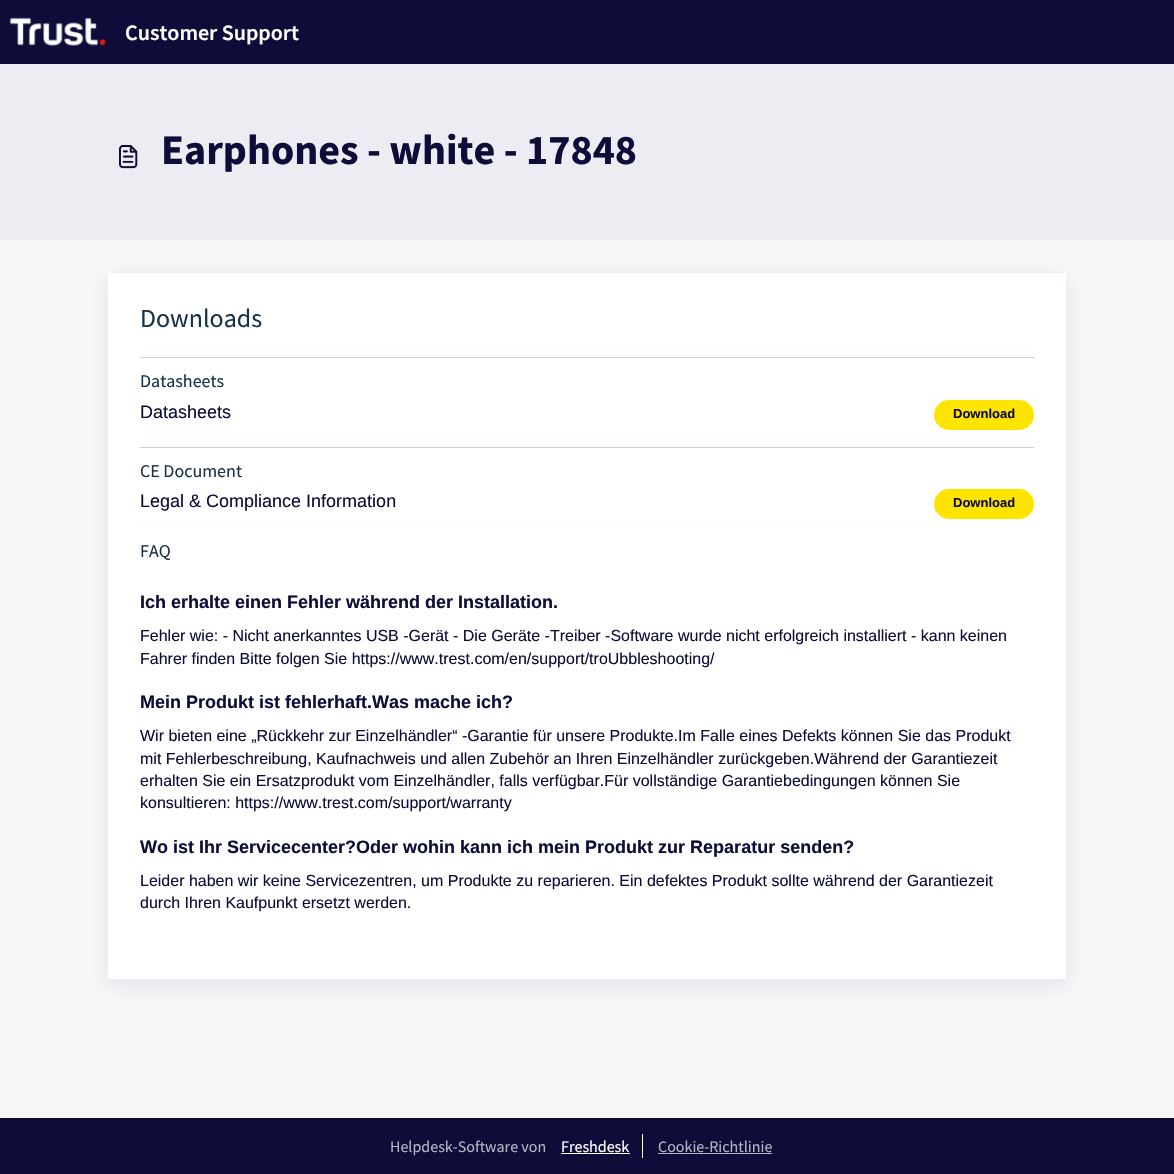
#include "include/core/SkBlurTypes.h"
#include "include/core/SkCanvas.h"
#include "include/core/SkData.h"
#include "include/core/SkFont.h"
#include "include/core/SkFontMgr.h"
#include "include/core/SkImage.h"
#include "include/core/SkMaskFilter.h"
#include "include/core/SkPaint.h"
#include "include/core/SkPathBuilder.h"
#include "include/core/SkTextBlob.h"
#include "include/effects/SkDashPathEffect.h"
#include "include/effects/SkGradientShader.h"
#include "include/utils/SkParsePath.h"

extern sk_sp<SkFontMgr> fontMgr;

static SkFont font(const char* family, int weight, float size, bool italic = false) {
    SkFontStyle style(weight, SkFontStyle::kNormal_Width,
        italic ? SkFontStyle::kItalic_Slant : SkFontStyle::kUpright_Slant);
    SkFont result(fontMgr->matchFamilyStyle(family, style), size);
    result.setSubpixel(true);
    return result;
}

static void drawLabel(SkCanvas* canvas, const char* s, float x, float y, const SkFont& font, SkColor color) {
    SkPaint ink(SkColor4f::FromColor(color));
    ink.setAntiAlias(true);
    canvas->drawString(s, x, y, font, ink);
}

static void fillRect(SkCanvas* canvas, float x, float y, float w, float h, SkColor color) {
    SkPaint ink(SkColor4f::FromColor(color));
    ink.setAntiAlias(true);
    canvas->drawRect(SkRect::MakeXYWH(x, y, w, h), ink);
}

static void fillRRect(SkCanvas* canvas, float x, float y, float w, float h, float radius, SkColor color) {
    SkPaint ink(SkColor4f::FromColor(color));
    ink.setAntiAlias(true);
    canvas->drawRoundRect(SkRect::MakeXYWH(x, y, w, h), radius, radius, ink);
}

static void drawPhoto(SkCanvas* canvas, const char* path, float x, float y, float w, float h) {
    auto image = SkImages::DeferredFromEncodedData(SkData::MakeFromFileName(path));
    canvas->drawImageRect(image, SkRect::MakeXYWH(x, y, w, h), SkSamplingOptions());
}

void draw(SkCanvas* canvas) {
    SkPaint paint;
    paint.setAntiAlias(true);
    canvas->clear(0xFFF5F7F9);
    fillRect(canvas, 0, 0, 1174, 64, 0xFF0E0C38);
    fillRect(canvas, 0, 64, 1174, 1, 0xFFEBEFF3);
    drawPhoto(canvas, "assets/img1.png", 9, 17, 97, 29);
    SkFont font1 = font("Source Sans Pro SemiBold", 600, 22);
    drawLabel(canvas, "Customer Support", 125, 40, font1, 0xFFFFFFFF);
    fillRect(canvas, 0, 65, 1174, 175, 0xFFEDECF3);
    drawPhoto(canvas, "assets/img2.png", 119, 145, 19, 24);
    SkFont font2 = font("Source Sans Pro", 700, 42);
    drawLabel(canvas, "Earphones - white - 17848", 161, 164, font2, 0xFF0E0C38);
    paint.setColor(0x1A27313A);
    paint.setMaskFilter(SkMaskFilter::MakeBlur(kNormal_SkBlurStyle, 9.5f));
    canvas->drawRoundRect(SkRect::MakeXYWH(107, 278, 960, 708), 12, 12, paint);
    paint.setMaskFilter(nullptr);
    paint.setStroke(true);
    paint.setStrokeWidth(1);
    paint.setColor(0xFFEBEFF3);
    canvas->drawRoundRect(SkRect::MakeXYWH(107.5f, 272.5f, 959, 707), 11.5f, 11.5f, paint);
    fillRect(canvas, 108, 273, 958, 706, 0xFFFFFFFF);
    SkFont font3 = font("Source Sans Pro", 400, 26);
    drawLabel(canvas, "Downloads", 140, 327, font3, 0xFF183247);
    fillRect(canvas, 140, 348, 894, 1, 0xFFFAFBFC);
    fillRect(canvas, 140, 357, 894, 1, 0xFFC9D2D9);
    SkFont font4 = font("Source Sans Pro", 400, 18);
    drawLabel(canvas, "Datasheets", 140, 387, font4, 0xFF183247);
    SkFont font5 = font("Liberation Sans", 400, 18);
    drawLabel(canvas, "Datasheets", 140, 418, font5, 0xFF0E0C38);
    fillRRect(canvas, 934, 400, 100, 30, 15, 0xFFFFE400);
    SkFont font6 = font("Liberation Sans", 700, 13);
    drawLabel(canvas, "Download", 953, 418, font6, 0xFF0E0C38);
    fillRect(canvas, 140, 438, 894, 1, 0xFFFAFBFC);
    fillRect(canvas, 140, 447, 894, 1, 0xFFC9D2D9);
    drawLabel(canvas, "CE Document", 140, 477, font4, 0xFF183247);
    drawLabel(canvas, "Legal & Compliance Information", 140, 507, font5, 0xFF0E0C38);
    fillRRect(canvas, 934, 489, 100, 30, 15, 0xFFFFE400);
    drawLabel(canvas, "Download", 953, 507, font6, 0xFF0E0C38);
    fillRect(canvas, 140, 527, 894, 1, 0xFFFAFBFC);
    drawLabel(canvas, "FAQ", 140, 557, font4, 0xFF183247);
    SkFont font7 = font("Liberation Sans", 700, 18);
    drawLabel(canvas, "Ich erhalte einen Fehler während der Installation.", 140, 608, font7, 0xFF0E0C38);
    SkFont font8 = font("Liberation Sans", 400, 16);
    drawLabel(canvas, "Fehler wie: - Nicht anerkanntes USB -Gerät - Die Geräte -Treiber -Software wurde nicht erfolgreich installiert - kann keinen", 140, 641, font8, 0xFF0E0C38);
    drawLabel(canvas, "Fahrer finden Bitte folgen Sie https://www.trest.com/en/support/troUbbleshooting/", 140, 664, font8, 0xFF0E0C38);
    drawLabel(canvas, "Mein Produkt ist fehlerhaft.Was mache ich?", 140, 708, font7, 0xFF0E0C38);
    drawLabel(canvas, "Wir bieten eine „Rückkehr zur Einzelhändler“ -Garantie für unsere Produkte.Im Falle eines Defekts können Sie das Produkt", 140, 741, font8, 0xFF0E0C38);
    drawLabel(canvas, "mit Fehlerbeschreibung, Kaufnachweis und allen Zubehör an Ihren Einzelhändler zurückgeben.Während der Garantiezeit", 140, 764, font8, 0xFF0E0C38);
    drawLabel(canvas, "erhalten Sie ein Ersatzprodukt vom Einzelhändler, falls verfügbar.Für vollständige Garantiebedingungen können Sie", 140, 786, font8, 0xFF0E0C38);
    drawLabel(canvas, "konsultieren: https://www.trest.com/support/warranty", 140, 808, font8, 0xFF0E0C38);
    drawLabel(canvas, "Wo ist Ihr Servicecenter?Oder wohin kann ich mein Produkt zur Reparatur senden?", 140, 853, font7, 0xFF0E0C38);
    drawLabel(canvas, "Leider haben wir keine Servicezentren, um Produkte zu reparieren. Ein defektes Produkt sollte während der Garantiezeit", 140, 886, font8, 0xFF0E0C38);
    drawLabel(canvas, "durch Ihren Kaufpunkt ersetzt werden.", 140, 908, font8, 0xFF0E0C38);
    fillRect(canvas, 0, 1118, 1174, 56, 0xFF0E0C38);
    SkFont font9 = font("Source Sans Pro", 400, 16);
    drawLabel(canvas, "Helpdesk-Software von", 390, 1152, font9, 0xFFB7B6C3);
    fillRect(canvas, 642, 1134, 1, 24, 0xFFFFFFFF);
    drawLabel(canvas, "Freshdesk", 561, 1152, font9, 0xFFFFFFFF);
    fillRect(canvas, 561, 1153, 69, 1, 0xFFFFFFFF);
    drawLabel(canvas, "Cookie-Richtlinie", 658, 1152, font9, 0xFFB7B6C3);
    fillRect(canvas, 658, 1153, 114, 1, 0xFFB7B6C3);
}
